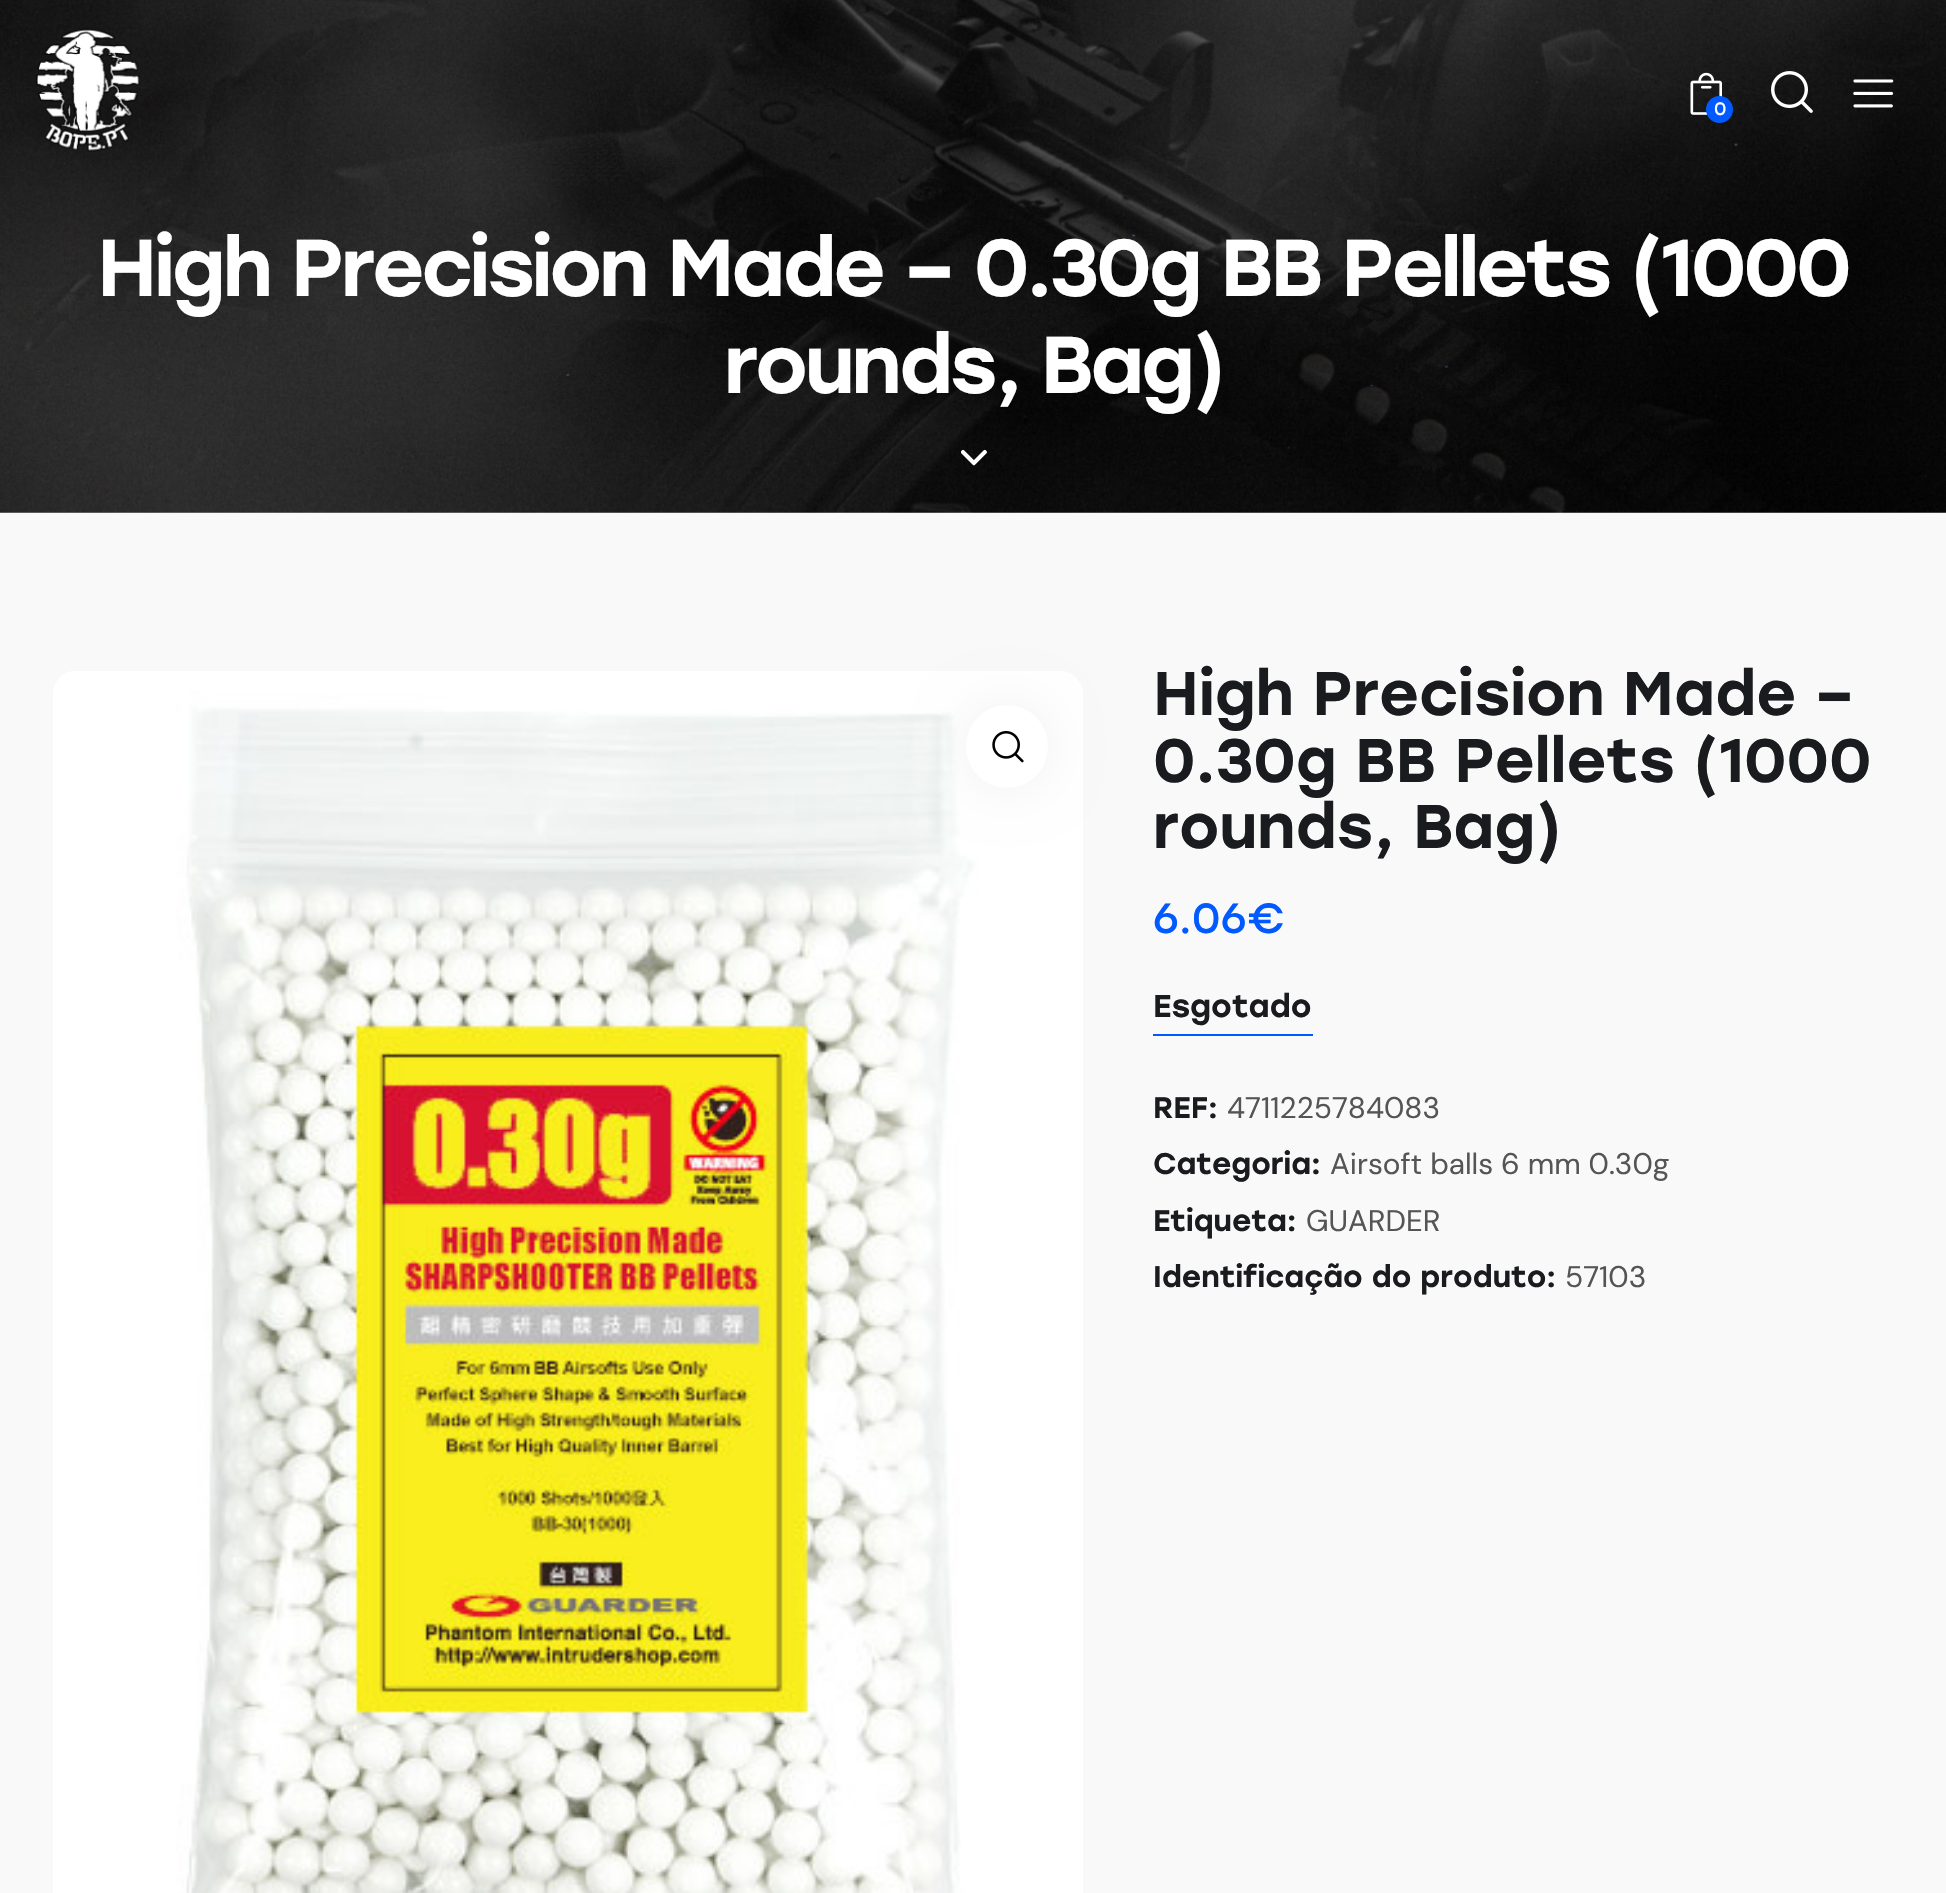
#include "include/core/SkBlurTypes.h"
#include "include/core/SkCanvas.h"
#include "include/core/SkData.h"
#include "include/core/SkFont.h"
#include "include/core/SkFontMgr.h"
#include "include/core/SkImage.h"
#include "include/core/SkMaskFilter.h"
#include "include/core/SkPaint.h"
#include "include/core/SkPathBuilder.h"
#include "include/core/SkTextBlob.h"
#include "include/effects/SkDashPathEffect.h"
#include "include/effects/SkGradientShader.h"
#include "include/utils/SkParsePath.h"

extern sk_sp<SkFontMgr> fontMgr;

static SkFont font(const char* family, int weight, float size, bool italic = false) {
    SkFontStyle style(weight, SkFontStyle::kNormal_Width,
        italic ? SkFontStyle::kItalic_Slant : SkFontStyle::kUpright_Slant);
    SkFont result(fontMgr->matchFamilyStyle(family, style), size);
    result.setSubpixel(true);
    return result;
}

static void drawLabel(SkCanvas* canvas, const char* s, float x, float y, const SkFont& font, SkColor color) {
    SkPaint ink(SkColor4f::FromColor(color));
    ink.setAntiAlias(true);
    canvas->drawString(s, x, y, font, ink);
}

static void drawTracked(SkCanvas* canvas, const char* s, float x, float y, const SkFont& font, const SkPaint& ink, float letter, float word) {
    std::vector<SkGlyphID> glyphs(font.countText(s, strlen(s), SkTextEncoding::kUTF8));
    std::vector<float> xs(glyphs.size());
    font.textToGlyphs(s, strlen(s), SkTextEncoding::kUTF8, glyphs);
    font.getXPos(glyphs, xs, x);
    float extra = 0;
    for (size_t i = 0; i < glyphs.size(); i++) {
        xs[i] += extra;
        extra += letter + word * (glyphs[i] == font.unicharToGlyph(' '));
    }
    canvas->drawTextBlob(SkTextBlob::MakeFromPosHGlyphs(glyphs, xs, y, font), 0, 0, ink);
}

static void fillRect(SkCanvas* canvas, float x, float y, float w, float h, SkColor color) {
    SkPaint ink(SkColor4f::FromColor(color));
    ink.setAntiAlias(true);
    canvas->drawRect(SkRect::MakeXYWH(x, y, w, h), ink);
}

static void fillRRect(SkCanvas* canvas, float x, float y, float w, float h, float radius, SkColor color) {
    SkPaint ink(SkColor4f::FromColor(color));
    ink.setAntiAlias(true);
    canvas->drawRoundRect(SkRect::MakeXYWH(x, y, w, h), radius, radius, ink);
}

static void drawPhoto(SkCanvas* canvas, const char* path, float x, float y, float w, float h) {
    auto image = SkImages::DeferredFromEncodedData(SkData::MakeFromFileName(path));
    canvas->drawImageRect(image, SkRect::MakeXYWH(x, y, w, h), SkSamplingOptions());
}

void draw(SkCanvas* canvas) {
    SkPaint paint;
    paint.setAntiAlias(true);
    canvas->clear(0xFFF9F9F9);
    drawPhoto(canvas, "assets/img1.png", 0, 0, 1946, 513);
    drawPhoto(canvas, "assets/img2.png", 36, 28, 104, 124);
    drawPhoto(canvas, "assets/img3.png", 1690, 72, 32, 43);
    paint.setColor(0xFF015AFF);
    canvas->drawCircle(1719.5f, 109.5f, 13.5f, paint);
    SkFont font1 = font("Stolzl", 400, 18);
    drawLabel(canvas, "0", 1714, 115, font1, 0xFFFFFFFF);
    drawPhoto(canvas, "assets/img4.png", 1771, 71, 42, 42);
    drawPhoto(canvas, "assets/img5.png", 1853, 79, 41, 29);
    SkFont font2 = font("Stolzl", 500, 80.5f);
    paint.setColor(0xFFFFFFFF);
    drawTracked(canvas, "High Precision Made – 0.30g BB Pellets (1000", 97, 296, font2, paint, -3.15f, 0);
    drawTracked(canvas, "rounds, Bag)", 724, 393, font2, paint, -3.15f, 0);
    drawPhoto(canvas, "assets/img6.png", 961, 449, 26, 17);
    drawPhoto(canvas, "assets/img8.png", 53, 671, 1030, 1222);
    paint.setColor(0x0F000000);
    paint.setMaskFilter(SkMaskFilter::MakeBlur(kNormal_SkBlurStyle, 26));
    canvas->drawRoundRect(SkRect::MakeXYWH(966, 705, 82, 83), 41, 41, paint);
    paint.setMaskFilter(nullptr);
    fillRRect(canvas, 966, 705, 82, 83, 41, 0xFFFFFFFF);
    drawPhoto(canvas, "assets/img7.png", 992, 731, 32, 32);
    SkFont font3 = font("Stolzl", 500, 61.25f);
    drawLabel(canvas, "High Precision Made –", 1153, 715, font3, 0xFF1A1B1E);
    drawLabel(canvas, "0.30g BB Pellets (1000", 1153, 782, font3, 0xFF1A1B1E);
    drawLabel(canvas, "rounds, Bag)", 1153, 848, font3, 0xFF1A1B1E);
    SkFont font4 = font("Stolzl", 400, 42);
    drawLabel(canvas, "6.06", 1153, 933, font4, 0xFF015AFF);
    paint.setColor(0xFF015AFF);
    drawTracked(canvas, "€", 1247, 933, font4, paint, 4, 0);
    SkFont font5 = font("Stolzl", 500, 31.5f);
    drawLabel(canvas, "Esgotado", 1153, 1017, font5, 0xFF1A1B1E);
    fillRect(canvas, 1153, 1034, 160, 2, 0xFF015AFF);
    SkFont font6 = font("Stolzl", 500, 29.75f);
    drawLabel(canvas, "REF:", 1153, 1118, font6, 0xFF1A1B1E);
    SkFont font7 = font("DM Sans", 400, 29.75f);
    drawLabel(canvas, "4711225784083", 1227, 1118, font7, 0xFF555555);
    drawLabel(canvas, "Categoria:", 1153, 1174, font6, 0xFF1A1B1E);
    drawLabel(canvas, "Airsoft balls 6 mm 0.30g", 1330, 1174, font7, 0xFF555555);
    drawLabel(canvas, "Etiqueta:", 1153, 1231, font6, 0xFF1A1B1E);
    drawLabel(canvas, "GUARDER", 1306, 1231, font7, 0xFF555555);
    drawLabel(canvas, "Identificação do produto:", 1153, 1287, font6, 0xFF1A1B1E);
    drawLabel(canvas, "57103", 1565, 1287, font7, 0xFF555555);
}
